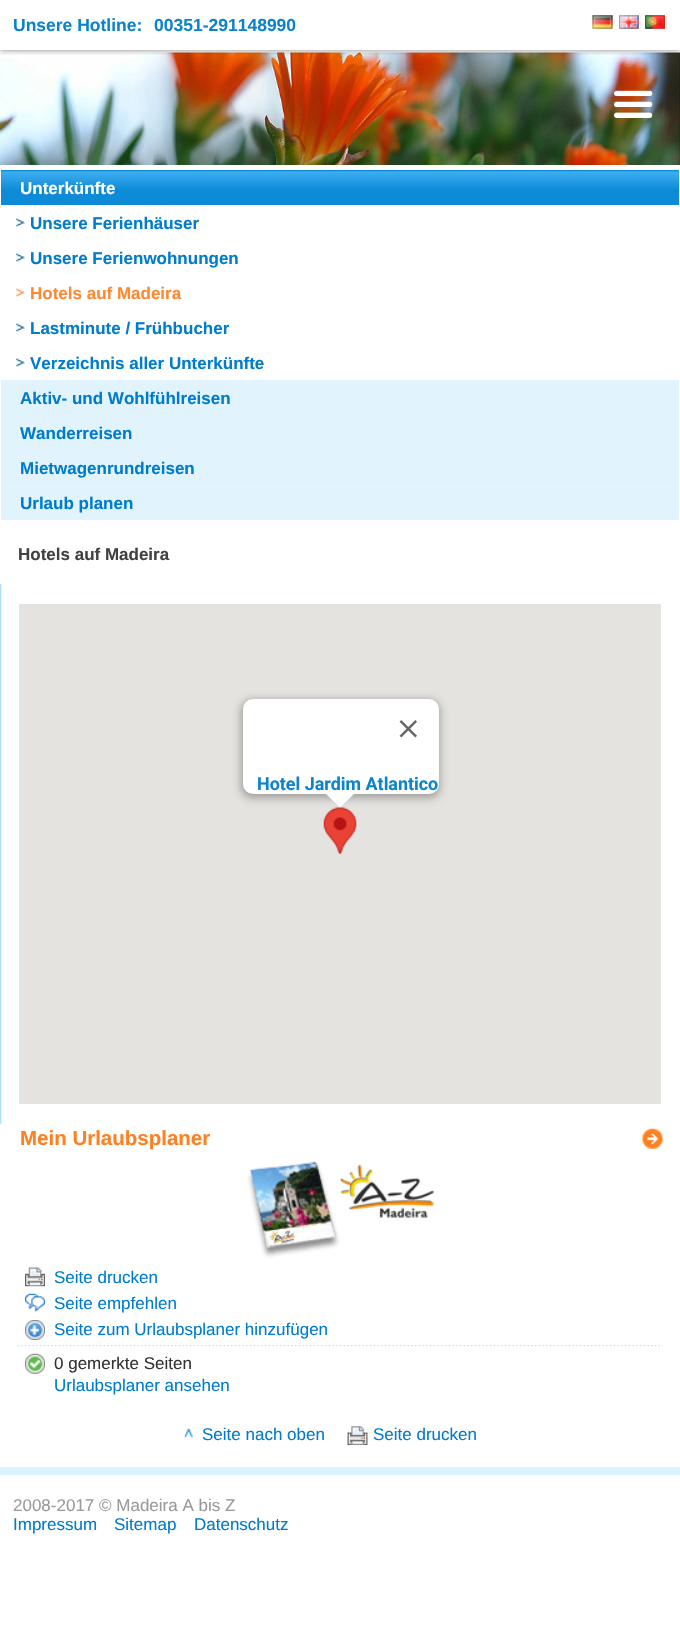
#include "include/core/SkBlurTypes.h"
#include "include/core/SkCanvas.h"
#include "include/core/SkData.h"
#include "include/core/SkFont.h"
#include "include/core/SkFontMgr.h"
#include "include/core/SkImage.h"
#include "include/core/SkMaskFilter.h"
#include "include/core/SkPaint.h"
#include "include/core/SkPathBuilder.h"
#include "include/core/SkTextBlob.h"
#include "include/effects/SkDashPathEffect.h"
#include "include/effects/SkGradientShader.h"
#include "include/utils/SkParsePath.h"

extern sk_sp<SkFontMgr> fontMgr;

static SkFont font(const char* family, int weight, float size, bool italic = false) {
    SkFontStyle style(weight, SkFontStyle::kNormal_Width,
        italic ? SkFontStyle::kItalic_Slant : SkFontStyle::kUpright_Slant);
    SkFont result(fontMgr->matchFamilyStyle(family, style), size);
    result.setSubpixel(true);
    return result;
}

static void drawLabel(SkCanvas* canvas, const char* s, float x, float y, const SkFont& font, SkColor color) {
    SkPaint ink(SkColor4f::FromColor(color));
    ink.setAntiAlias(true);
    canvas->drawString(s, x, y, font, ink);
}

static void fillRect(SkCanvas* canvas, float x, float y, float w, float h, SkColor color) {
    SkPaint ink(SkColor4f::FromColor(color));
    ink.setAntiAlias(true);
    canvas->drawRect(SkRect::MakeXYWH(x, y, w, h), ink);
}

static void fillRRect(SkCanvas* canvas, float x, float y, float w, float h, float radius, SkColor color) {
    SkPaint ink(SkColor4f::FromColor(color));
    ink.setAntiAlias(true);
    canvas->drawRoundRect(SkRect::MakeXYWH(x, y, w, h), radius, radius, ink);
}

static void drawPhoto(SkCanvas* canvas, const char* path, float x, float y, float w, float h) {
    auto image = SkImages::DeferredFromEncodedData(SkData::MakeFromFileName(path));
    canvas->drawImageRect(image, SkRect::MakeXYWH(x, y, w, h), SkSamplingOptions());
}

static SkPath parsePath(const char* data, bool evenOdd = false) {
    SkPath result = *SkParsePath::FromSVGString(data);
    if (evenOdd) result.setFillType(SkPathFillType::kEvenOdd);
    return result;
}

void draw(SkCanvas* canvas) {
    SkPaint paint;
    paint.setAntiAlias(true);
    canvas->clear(0xFFFFFFFF);
    drawPhoto(canvas, "assets/img4.png", 0, 52, 680, 113);
    canvas->save();
    canvas->clipRect(SkRect::MakeXYWH(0, 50, 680, 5));
    paint.setColor(0x80000000);
    paint.setMaskFilter(SkMaskFilter::MakeBlur(kNormal_SkBlurStyle, 3));
    canvas->drawRect(SkRect::MakeXYWH(0, 0, 680, 50), paint);
    paint.setMaskFilter(nullptr);
    canvas->restore();
    SkFont font1 = font("Liberation Sans", 700, 17.5f);
    drawLabel(canvas, "Unsere Hotline:", 13, 31, font1, 0xFF0C84CC);
    drawLabel(canvas, "00351-291148990", 154, 31, font1, 0xFF0C84CC);
    drawPhoto(canvas, "assets/img1.png", 592, 14, 23, 15);
    paint.setStroke(true);
    paint.setStrokeWidth(1);
    paint.setColor(0xFFFFFFFF);
    canvas->drawRect(SkRect::MakeXYWH(591.5f, 14.5f, 22, 15), paint);
    drawPhoto(canvas, "assets/img2.png", 619, 14, 22, 15);
    canvas->drawRect(SkRect::MakeXYWH(618.5f, 14.5f, 21, 15), paint);
    drawPhoto(canvas, "assets/img3.png", 645, 14, 22, 15);
    canvas->drawRect(SkRect::MakeXYWH(644.5f, 14.5f, 21, 15), paint);
    drawPhoto(canvas, "assets/img5.png", 614, 90, 39, 28);
    fillRect(canvas, 1, 170, 678, 35, 0xFF0D8BD7);
    drawPhoto(canvas, "assets/img6.png", 1, 171, 678, 18);
    SkFont font2 = font("Liberation Sans", 700, 17);
    drawLabel(canvas, "Unterkünfte", 20, 194, font2, 0xFFFFFFFF);
    drawPhoto(canvas, "assets/img7.png", 16, 218, 9, 9);
    drawLabel(canvas, "Unsere Ferienhäuser", 30, 229, font2, 0xFF007CCE);
    drawPhoto(canvas, "assets/img7.png", 16, 253, 9, 9);
    drawLabel(canvas, "Unsere Ferienwohnungen", 30, 264, font2, 0xFF007CCE);
    drawPhoto(canvas, "assets/img8.png", 16, 288, 9, 9);
    drawLabel(canvas, "Hotels auf Madeira", 30, 299, font2, 0xFFFF8830);
    drawPhoto(canvas, "assets/img7.png", 16, 323, 9, 9);
    drawLabel(canvas, "Lastminute / Frühbucher", 30, 334, font2, 0xFF007CCE);
    drawPhoto(canvas, "assets/img7.png", 16, 358, 9, 9);
    drawLabel(canvas, "Verzeichnis aller Unterkünfte", 30, 369, font2, 0xFF007CCE);
    fillRect(canvas, 1, 383, 678, 32, 0xFFE1F3FD);
    fillRect(canvas, 1, 380, 678, 3, 0xFFE4F4FE);
    drawLabel(canvas, "Aktiv- und Wohlfühlreisen", 20, 404, font2, 0xFF007CCE);
    fillRect(canvas, 1, 418, 678, 32, 0xFFE1F3FD);
    fillRect(canvas, 1, 415, 678, 3, 0xFFE4F4FE);
    drawLabel(canvas, "Wanderreisen", 20, 439, font2, 0xFF007CCE);
    fillRect(canvas, 1, 453, 678, 32, 0xFFE1F3FD);
    fillRect(canvas, 1, 450, 678, 3, 0xFFE4F4FE);
    drawLabel(canvas, "Mietwagenrundreisen", 20, 474, font2, 0xFF007CCE);
    fillRect(canvas, 1, 488, 678, 32, 0xFFE1F3FD);
    fillRect(canvas, 1, 485, 678, 3, 0xFFE4F4FE);
    drawLabel(canvas, "Urlaub planen", 20, 509, font2, 0xFF007CCE);
    drawLabel(canvas, "Hotels auf Madeira", 18, 560, font2, 0xFF414141);
    drawPhoto(canvas, "assets/img9.png", 0, 583, 2, 541);
    fillRect(canvas, 19, 604, 642, 500, 0xFFE5E3DF);
    drawPhoto(canvas, "assets/img11.png", 323, 807, 34, 47);
    paint.setStroke(false);
    paint.setColor(0x4D000000);
    paint.setMaskFilter(SkMaskFilter::MakeBlur(kNormal_SkBlurStyle, 4.5f));
    canvas->drawRoundRect(SkRect::MakeXYWH(241, 700, 199, 98), 11, 11, paint);
    paint.setMaskFilter(nullptr);
    fillRRect(canvas, 243, 699, 196, 95, 10, 0xFFFFFFFF);
    drawPhoto(canvas, "assets/img10.png", 399, 720, 18, 18);
    SkFont font3 = font("Roboto", 700, 17.9f);
    drawLabel(canvas, "Hotel Jardim Atlantico", 257, 790, font3, 0xFF0C84CC);
    paint.setColor(0xFFFFFFFF);
    canvas->drawPath(parsePath("M325 793L340 807.5L355 793Z"), paint);
    drawPhoto(canvas, "assets/img12.png", 642, 1128, 21, 21);
    SkFont font4 = font("Liberation Sans", 700, 20.5f);
    drawLabel(canvas, "Mein Urlaubsplaner", 20, 1145, font4, 0xFFFF8021);
    drawPhoto(canvas, "assets/img13.png", 247, 1161, 187, 97);
    drawPhoto(canvas, "assets/img14.png", 25, 1267, 20, 20);
    SkFont font5 = font("Liberation Sans", 400, 17);
    drawLabel(canvas, "Seite drucken", 54, 1283, font5, 0xFF007CCE);
    drawPhoto(canvas, "assets/img15.png", 25, 1293, 20, 19);
    drawLabel(canvas, "Seite empfehlen", 54, 1309, font5, 0xFF007CCE);
    drawPhoto(canvas, "assets/img16.png", 17, 1345, 646, 2);
    drawPhoto(canvas, "assets/img17.png", 25, 1320, 20, 20);
    drawLabel(canvas, "Seite zum Urlaubsplaner hinzufügen", 54, 1335, font5, 0xFF007CCE);
    drawPhoto(canvas, "assets/img18.png", 25, 1353, 20, 21);
    drawLabel(canvas, "0 gemerkte Seiten", 54, 1369, font5, 0xFF333333);
    drawLabel(canvas, "Urlaubsplaner ansehen", 54, 1391, font5, 0xFF007CCE);
    drawPhoto(canvas, "assets/img19.png", 183, 1428, 10, 10);
    drawLabel(canvas, "Seite nach oben", 202, 1440, font5, 0xFF007CCE);
    drawPhoto(canvas, "assets/img20.png", 347, 1426, 21, 19);
    drawLabel(canvas, "Seite drucken", 373, 1440, font5, 0xFF007CCE);
    fillRect(canvas, 0, 1467, 680, 8, 0xFFDAF3FD);
    drawLabel(canvas, "2008-2017 © Madeira A bis Z", 13, 1511, font5, 0xFF999999);
    drawLabel(canvas, "Impressum", 13, 1530, font5, 0xFF007CCE);
    drawLabel(canvas, "Sitemap", 114, 1530, font5, 0xFF007CCE);
    drawLabel(canvas, "Datenschutz", 194, 1530, font5, 0xFF007CCE);
}
